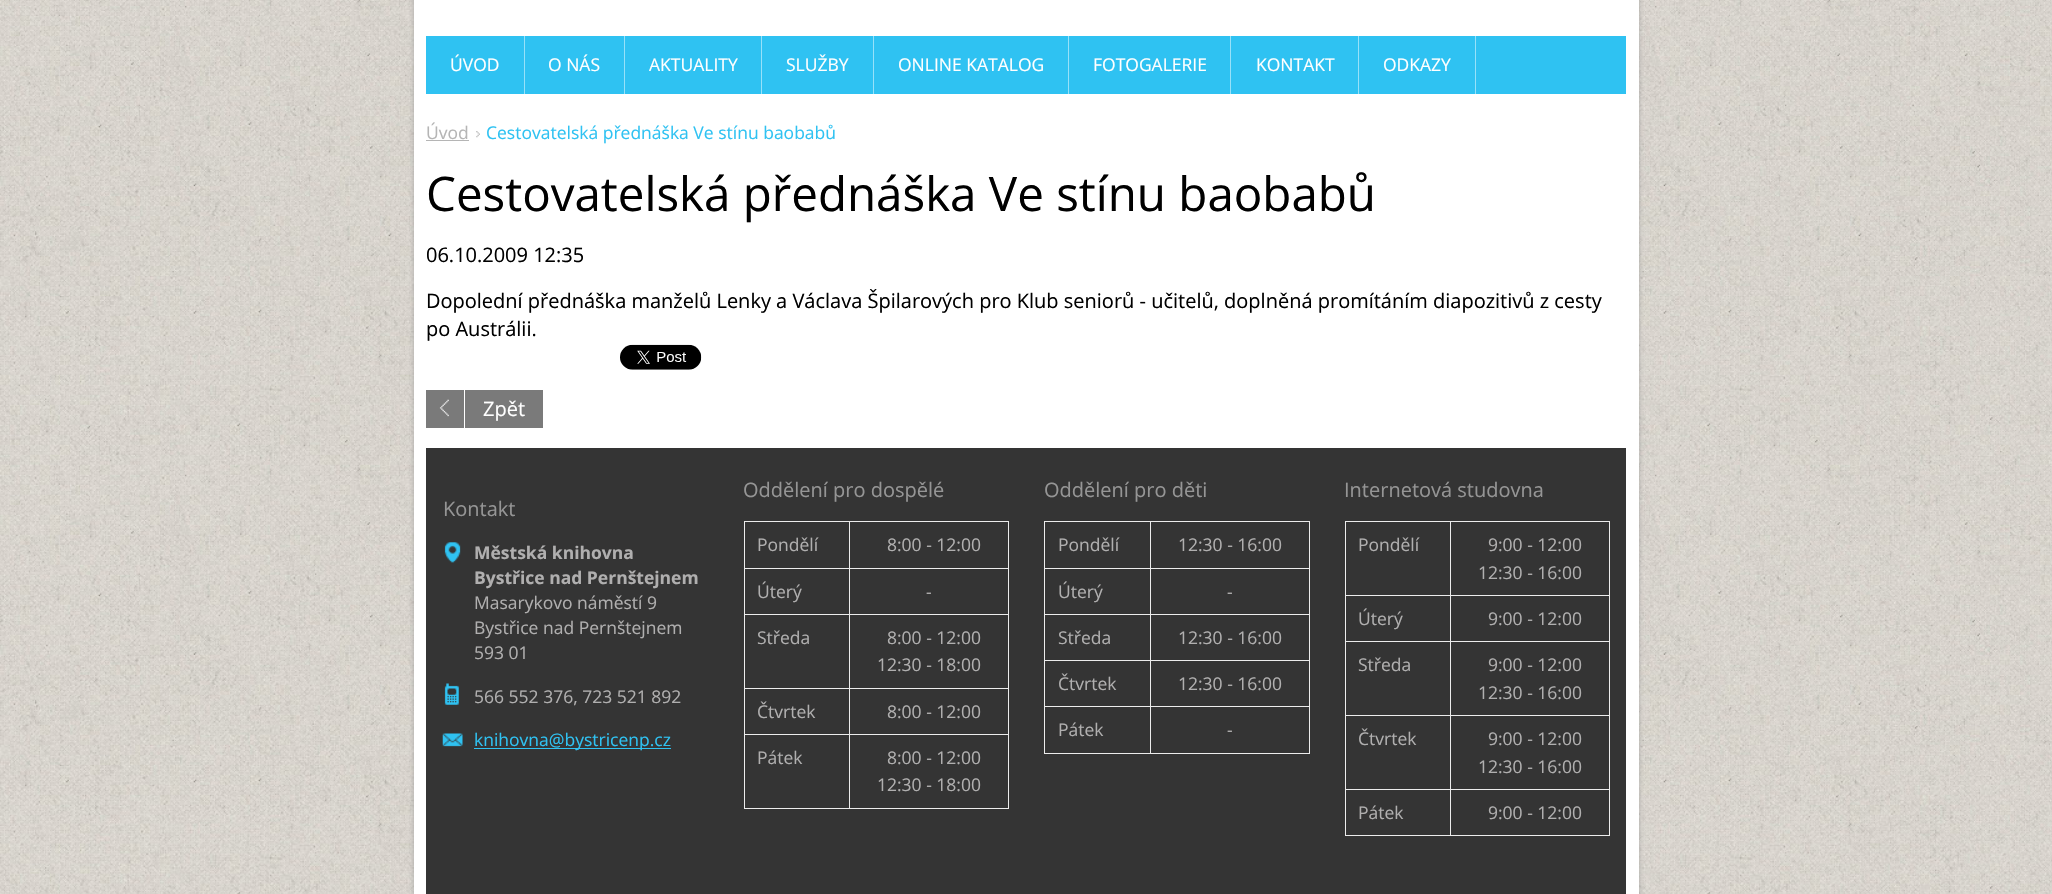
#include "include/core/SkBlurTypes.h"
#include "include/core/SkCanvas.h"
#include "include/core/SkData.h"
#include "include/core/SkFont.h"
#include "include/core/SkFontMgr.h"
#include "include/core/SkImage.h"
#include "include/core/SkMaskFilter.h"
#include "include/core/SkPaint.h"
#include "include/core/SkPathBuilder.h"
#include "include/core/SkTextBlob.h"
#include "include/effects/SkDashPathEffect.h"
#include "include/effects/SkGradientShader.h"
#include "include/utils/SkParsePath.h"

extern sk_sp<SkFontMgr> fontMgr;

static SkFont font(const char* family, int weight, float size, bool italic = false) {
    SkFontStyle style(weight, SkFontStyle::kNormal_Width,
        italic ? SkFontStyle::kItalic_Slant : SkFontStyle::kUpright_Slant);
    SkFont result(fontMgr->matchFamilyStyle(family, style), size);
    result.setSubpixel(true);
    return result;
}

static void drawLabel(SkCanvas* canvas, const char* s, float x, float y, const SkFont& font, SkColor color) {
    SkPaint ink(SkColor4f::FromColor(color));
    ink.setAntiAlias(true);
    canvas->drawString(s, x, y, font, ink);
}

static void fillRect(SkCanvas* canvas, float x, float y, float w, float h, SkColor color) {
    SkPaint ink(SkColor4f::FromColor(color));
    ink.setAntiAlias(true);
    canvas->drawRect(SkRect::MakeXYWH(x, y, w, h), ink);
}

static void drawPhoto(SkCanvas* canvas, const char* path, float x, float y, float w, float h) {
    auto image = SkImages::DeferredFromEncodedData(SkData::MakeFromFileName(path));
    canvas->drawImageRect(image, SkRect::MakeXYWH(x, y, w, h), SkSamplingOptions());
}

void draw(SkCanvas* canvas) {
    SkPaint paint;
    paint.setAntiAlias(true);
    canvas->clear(0xFFFFFFFF);
    drawPhoto(canvas, "assets/img1.png", 0, 0, 2052, 894);
    paint.setColor(0xBF989898);
    paint.setMaskFilter(SkMaskFilter::MakeBlur(kNormal_SkBlurStyle, 2.5f));
    canvas->drawRect(SkRect::MakeXYWH(414, -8, 1225, 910), paint);
    paint.setMaskFilter(nullptr);
    fillRect(canvas, 414, 0, 1225, 894, 0xFFFFFFFF);
    fillRect(canvas, 426, 36, 1200, 58, 0xFF2FC2F2);
    fillRect(canvas, 524, 36, 1, 58, 0xFF97E1F9);
    SkFont font1 = font("Open Sans", 400, 17.5f);
    drawLabel(canvas, "ÚVOD", 450, 71, font1, 0xFFFFFFFF);
    fillRect(canvas, 624, 36, 1, 58, 0xFF97E1F9);
    drawLabel(canvas, "O NÁS", 548, 71, font1, 0xFFFFFFFF);
    fillRect(canvas, 761, 36, 1, 58, 0xFF97E1F9);
    drawLabel(canvas, "AKTUALITY", 649, 71, font1, 0xFFFFFFFF);
    fillRect(canvas, 873, 36, 1, 58, 0xFF97E1F9);
    drawLabel(canvas, "SLUŽBY", 786, 71, font1, 0xFFFFFFFF);
    fillRect(canvas, 1068, 36, 1, 58, 0xFF97E1F9);
    drawLabel(canvas, "ONLINE KATALOG", 898, 71, font1, 0xFFFFFFFF);
    fillRect(canvas, 1230, 36, 1, 58, 0xFF97E1F9);
    drawLabel(canvas, "FOTOGALERIE", 1093, 71, font1, 0xFFFFFFFF);
    fillRect(canvas, 1358, 36, 1, 58, 0xFF97E1F9);
    drawLabel(canvas, "KONTAKT", 1256, 71, font1, 0xFFFFFFFF);
    fillRect(canvas, 1475, 36, 1, 58, 0xFF97E1F9);
    drawLabel(canvas, "ODKAZY", 1383, 71, font1, 0xFFFFFFFF);
    drawLabel(canvas, "Úvod", 426, 139, font1, 0xFFB5B5B5);
    fillRect(canvas, 426, 140, 43, 1, 0xFFB5B5B5);
    drawPhoto(canvas, "assets/img2.png", 476, 131, 4, 7);
    drawLabel(canvas, "Cestovatelská přednáška Ve stínu baobabů", 486, 139, font1, 0xFF2FC2F2);
    SkFont font2 = font("Open Sans", 400, 47.5f);
    drawLabel(canvas, "Cestovatelská přednáška Ve stínu baobabů", 426, 211, font2, 0xFF000000);
    SkFont font3 = font("Open Sans", 400, 20);
    drawLabel(canvas, "06.10.2009 12:35", 426, 262, font3, 0xFF000000);
    drawLabel(canvas, "Dopolední přednáška manželů Lenky a Václava Špilarových pro Klub seniorů - učitelů, doplněná promítáním diapozitivů z cesty", 426, 308, font3, 0xFF000000);
    drawLabel(canvas, "po Austrálii.", 426, 336, font3, 0xFF000000);
    drawPhoto(canvas, "assets/img3.png", 620, 344, 82, 26);
    fillRect(canvas, 426, 390, 117, 38, 0xFF7A7A7A);
    drawPhoto(canvas, "assets/img4.png", 439, 399, 10, 18);
    fillRect(canvas, 464, 390, 1, 38, 0xFFFFFFFF);
    drawLabel(canvas, "Zpět", 483, 416, font3, 0xFFFFFFFF);
    fillRect(canvas, 426, 448, 1200, 446, 0xFF343434);
    drawLabel(canvas, "Kontakt", 443, 516, font3, 0xFF959595);
    drawPhoto(canvas, "assets/img5.png", 444, 542, 17, 21);
    SkFont font4 = font("Open Sans", 700, 17.5f);
    drawLabel(canvas, "Městská knihovna", 474, 559, font4, 0xFFB0AFAF);
    drawLabel(canvas, "Bystřice nad Pernštejnem", 474, 584, font4, 0xFFB0AFAF);
    drawLabel(canvas, "Masarykovo náměstí 9", 474, 609, font1, 0xFFB0AFAF);
    drawLabel(canvas, "Bystřice nad Pernštejnem", 474, 634, font1, 0xFFB0AFAF);
    drawLabel(canvas, "593 01", 474, 659, font1, 0xFFB0AFAF);
    drawPhoto(canvas, "assets/img6.png", 444, 683, 15, 22);
    drawLabel(canvas, "566 552 376, 723 521 892", 474, 703, font1, 0xFFB0AFAF);
    drawPhoto(canvas, "assets/img7.png", 442, 733, 21, 14);
    fillRect(canvas, 474, 748, 197, 1, 0xFF2FC2F2);
    drawLabel(canvas, "knihovna@bystricenp.cz", 474, 746, font1, 0xFF2FC2F2);
    drawLabel(canvas, "Oddělení pro dospělé", 743, 497, font3, 0xFF959595);
    fillRect(canvas, 744, 521, 265, 1, 0xFFECECEC);
    fillRect(canvas, 1008, 521, 1, 288, 0xFFECECEC);
    fillRect(canvas, 744, 808, 265, 1, 0xFFECECEC);
    fillRect(canvas, 744, 521, 1, 288, 0xFFECECEC);
    drawLabel(canvas, "Pondělí", 757, 551, font1, 0xFFB0AFAF);
    fillRect(canvas, 849, 568, 160, 1, 0xFFECECEC);
    fillRect(canvas, 849, 614, 160, 1, 0xFFECECEC);
    fillRect(canvas, 849, 688, 160, 1, 0xFFECECEC);
    fillRect(canvas, 849, 734, 160, 1, 0xFFECECEC);
    fillRect(canvas, 849, 734, 1, 75, 0xFFECECEC);
    fillRect(canvas, 744, 734, 106, 1, 0xFFECECEC);
    fillRect(canvas, 849, 688, 1, 47, 0xFFECECEC);
    fillRect(canvas, 744, 688, 106, 1, 0xFFECECEC);
    fillRect(canvas, 849, 614, 1, 75, 0xFFECECEC);
    fillRect(canvas, 744, 614, 106, 1, 0xFFECECEC);
    fillRect(canvas, 849, 568, 1, 47, 0xFFECECEC);
    fillRect(canvas, 744, 568, 106, 1, 0xFFECECEC);
    fillRect(canvas, 849, 521, 1, 48, 0xFFECECEC);
    drawLabel(canvas, "8:00 - 12:00", 887, 551, font1, 0xFFB0AFAF);
    drawLabel(canvas, "Úterý", 757, 598, font1, 0xFFB0AFAF);
    drawLabel(canvas, "-", 926, 598, font1, 0xFFB0AFAF);
    drawLabel(canvas, "Středa", 757, 644, font1, 0xFFB0AFAF);
    drawLabel(canvas, "8:00 - 12:00", 887, 644, font1, 0xFFB0AFAF);
    drawLabel(canvas, "12:30 - 18:00", 877, 671, font1, 0xFFB0AFAF);
    drawLabel(canvas, "Čtvrtek", 757, 718, font1, 0xFFB0AFAF);
    drawLabel(canvas, "8:00 - 12:00", 887, 718, font1, 0xFFB0AFAF);
    drawLabel(canvas, "Pátek", 757, 764, font1, 0xFFB0AFAF);
    drawLabel(canvas, "8:00 - 12:00", 887, 764, font1, 0xFFB0AFAF);
    drawLabel(canvas, "12:30 - 18:00", 877, 791, font1, 0xFFB0AFAF);
    drawLabel(canvas, "Oddělení pro děti", 1044, 497, font3, 0xFF959595);
    fillRect(canvas, 1044, 521, 266, 1, 0xFFECECEC);
    fillRect(canvas, 1309, 521, 1, 233, 0xFFECECEC);
    fillRect(canvas, 1044, 753, 266, 1, 0xFFECECEC);
    fillRect(canvas, 1044, 521, 1, 233, 0xFFECECEC);
    drawLabel(canvas, "Pondělí", 1058, 551, font1, 0xFFB0AFAF);
    fillRect(canvas, 1150, 568, 160, 1, 0xFFECECEC);
    fillRect(canvas, 1150, 614, 160, 1, 0xFFECECEC);
    fillRect(canvas, 1150, 660, 160, 1, 0xFFECECEC);
    fillRect(canvas, 1150, 706, 160, 1, 0xFFECECEC);
    fillRect(canvas, 1150, 706, 1, 48, 0xFFECECEC);
    fillRect(canvas, 1044, 706, 107, 1, 0xFFECECEC);
    fillRect(canvas, 1150, 660, 1, 48, 0xFFECECEC);
    fillRect(canvas, 1044, 660, 107, 1, 0xFFECECEC);
    fillRect(canvas, 1150, 614, 1, 47, 0xFFECECEC);
    fillRect(canvas, 1044, 614, 107, 1, 0xFFECECEC);
    fillRect(canvas, 1150, 568, 1, 47, 0xFFECECEC);
    fillRect(canvas, 1044, 568, 107, 1, 0xFFECECEC);
    fillRect(canvas, 1150, 521, 1, 48, 0xFFECECEC);
    drawLabel(canvas, "12:30 - 16:00", 1178, 551, font1, 0xFFB0AFAF);
    drawLabel(canvas, "Úterý", 1058, 598, font1, 0xFFB0AFAF);
    drawLabel(canvas, "-", 1227, 598, font1, 0xFFB0AFAF);
    drawLabel(canvas, "Středa", 1058, 644, font1, 0xFFB0AFAF);
    drawLabel(canvas, "12:30 - 16:00", 1178, 644, font1, 0xFFB0AFAF);
    drawLabel(canvas, "Čtvrtek", 1058, 690, font1, 0xFFB0AFAF);
    drawLabel(canvas, "12:30 - 16:00", 1178, 690, font1, 0xFFB0AFAF);
    drawLabel(canvas, "Pátek", 1058, 736, font1, 0xFFB0AFAF);
    drawLabel(canvas, "-", 1227, 736, font1, 0xFFB0AFAF);
    drawLabel(canvas, "Internetová studovna", 1344, 497, font3, 0xFF959595);
    fillRect(canvas, 1345, 521, 265, 1, 0xFFECECEC);
    fillRect(canvas, 1609, 521, 1, 315, 0xFFECECEC);
    fillRect(canvas, 1345, 835, 265, 1, 0xFFECECEC);
    fillRect(canvas, 1345, 521, 1, 315, 0xFFECECEC);
    drawLabel(canvas, "Pondělí", 1358, 551, font1, 0xFFB0AFAF);
    fillRect(canvas, 1450, 595, 160, 1, 0xFFECECEC);
    fillRect(canvas, 1450, 641, 160, 1, 0xFFECECEC);
    fillRect(canvas, 1450, 715, 160, 1, 0xFFECECEC);
    fillRect(canvas, 1450, 789, 160, 1, 0xFFECECEC);
    fillRect(canvas, 1450, 789, 1, 47, 0xFFECECEC);
    fillRect(canvas, 1345, 789, 106, 1, 0xFFECECEC);
    fillRect(canvas, 1450, 715, 1, 75, 0xFFECECEC);
    fillRect(canvas, 1345, 715, 106, 1, 0xFFECECEC);
    fillRect(canvas, 1450, 641, 1, 75, 0xFFECECEC);
    fillRect(canvas, 1345, 641, 106, 1, 0xFFECECEC);
    fillRect(canvas, 1450, 595, 1, 48, 0xFFECECEC);
    fillRect(canvas, 1345, 595, 106, 1, 0xFFECECEC);
    fillRect(canvas, 1450, 521, 1, 75, 0xFFECECEC);
    drawLabel(canvas, "9:00 - 12:00", 1488, 551, font1, 0xFFB0AFAF);
    drawLabel(canvas, "12:30 - 16:00", 1478, 579, font1, 0xFFB0AFAF);
    drawLabel(canvas, "Úterý", 1358, 625, font1, 0xFFB0AFAF);
    drawLabel(canvas, "9:00 - 12:00", 1488, 625, font1, 0xFFB0AFAF);
    drawLabel(canvas, "Středa", 1358, 671, font1, 0xFFB0AFAF);
    drawLabel(canvas, "9:00 - 12:00", 1488, 671, font1, 0xFFB0AFAF);
    drawLabel(canvas, "12:30 - 16:00", 1478, 699, font1, 0xFFB0AFAF);
    drawLabel(canvas, "Čtvrtek", 1358, 745, font1, 0xFFB0AFAF);
    drawLabel(canvas, "9:00 - 12:00", 1488, 745, font1, 0xFFB0AFAF);
    drawLabel(canvas, "12:30 - 16:00", 1478, 773, font1, 0xFFB0AFAF);
    drawLabel(canvas, "Pátek", 1358, 819, font1, 0xFFB0AFAF);
    drawLabel(canvas, "9:00 - 12:00", 1488, 819, font1, 0xFFB0AFAF);
}
